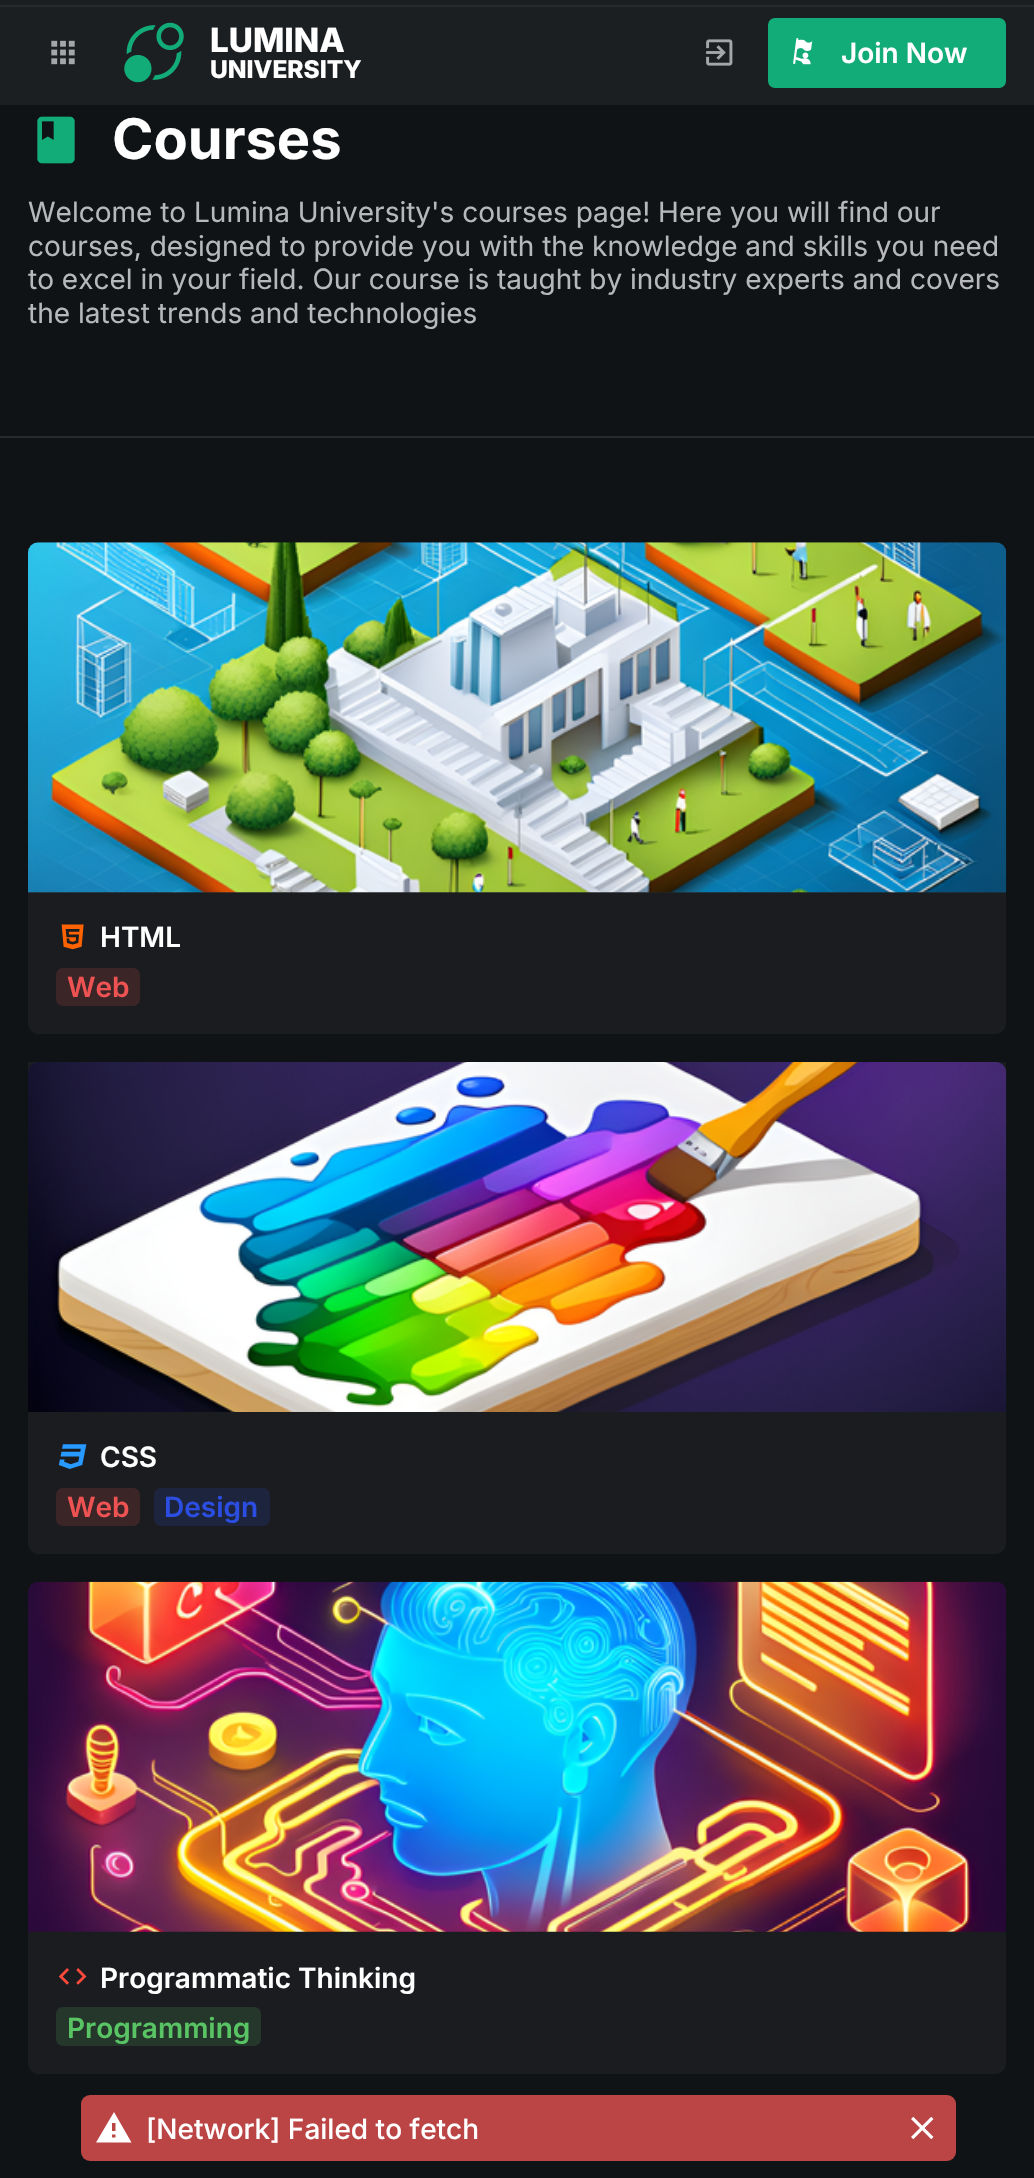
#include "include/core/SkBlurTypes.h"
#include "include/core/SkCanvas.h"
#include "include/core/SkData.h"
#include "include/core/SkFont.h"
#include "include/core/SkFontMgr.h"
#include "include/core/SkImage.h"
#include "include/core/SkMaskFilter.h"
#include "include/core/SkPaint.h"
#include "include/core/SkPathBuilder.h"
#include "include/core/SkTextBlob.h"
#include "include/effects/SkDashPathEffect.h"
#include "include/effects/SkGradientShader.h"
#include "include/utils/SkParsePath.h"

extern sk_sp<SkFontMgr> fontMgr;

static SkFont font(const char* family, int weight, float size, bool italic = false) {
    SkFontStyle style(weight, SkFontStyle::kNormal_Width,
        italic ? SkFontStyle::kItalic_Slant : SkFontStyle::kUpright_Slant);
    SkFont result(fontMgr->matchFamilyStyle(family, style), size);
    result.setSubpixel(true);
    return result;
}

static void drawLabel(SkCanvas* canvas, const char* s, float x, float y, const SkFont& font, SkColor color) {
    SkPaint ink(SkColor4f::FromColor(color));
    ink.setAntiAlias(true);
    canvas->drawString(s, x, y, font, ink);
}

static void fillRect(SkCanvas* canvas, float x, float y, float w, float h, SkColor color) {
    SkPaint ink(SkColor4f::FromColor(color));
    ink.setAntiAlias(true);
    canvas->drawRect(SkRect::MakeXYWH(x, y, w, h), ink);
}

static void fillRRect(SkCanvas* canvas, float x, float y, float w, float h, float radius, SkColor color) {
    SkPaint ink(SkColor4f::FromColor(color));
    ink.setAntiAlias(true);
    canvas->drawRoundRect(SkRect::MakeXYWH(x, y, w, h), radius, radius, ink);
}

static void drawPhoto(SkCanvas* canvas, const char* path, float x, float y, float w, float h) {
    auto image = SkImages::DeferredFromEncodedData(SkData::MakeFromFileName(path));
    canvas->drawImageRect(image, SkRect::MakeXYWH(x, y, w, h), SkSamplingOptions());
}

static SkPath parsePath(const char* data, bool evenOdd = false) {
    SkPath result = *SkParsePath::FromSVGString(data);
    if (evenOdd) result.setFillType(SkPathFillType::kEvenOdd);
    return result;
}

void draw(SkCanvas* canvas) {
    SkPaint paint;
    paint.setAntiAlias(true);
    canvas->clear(0xFF101316);
    fillRect(canvas, 0, 0, 1034, 105, 0xFF1C1F22);
    drawPhoto(canvas, "assets/img1.png", 51, 40, 24, 25);
    drawPhoto(canvas, "assets/img2.png", 124, 22, 60, 61);
    SkFont font1 = font("Inter", 800, 33.25f);
    drawLabel(canvas, "LUMINA", 210, 52, font1, 0xFFFFFFFF);
    SkFont font2 = font("Inter", 800, 24.5f);
    drawLabel(canvas, "UNIVERSITY", 210, 78, font2, 0xFFFFFFFF);
    drawPhoto(canvas, "assets/img3.png", 706, 39, 27, 27);
    fillRRect(canvas, 768, 18, 238, 70, 7, 0xFF12AC78);
    drawPhoto(canvas, "assets/img4.png", 793, 38, 20, 27);
    SkFont font3 = font("Inter", 600, 28);
    drawLabel(canvas, "Join Now", 841, 63, font3, 0xFFFFFFFF);
    fillRect(canvas, 0, 5, 1034, 2, 0xFF282B2E);
    drawPhoto(canvas, "assets/img5.png", 37, 116, 38, 48);
    SkFont font4 = font("Inter", 700, 56);
    drawLabel(canvas, "Courses", 112, 159, font4, 0xFFFFFFFF);
    SkFont font5 = font("Inter", 400, 28);
    drawLabel(canvas, "Welcome to Lumina University's courses page! Here you will find our", 28, 222, font5, 0xFFB7B8B9);
    drawLabel(canvas, "courses, designed to provide you with the knowledge and skills you need", 28, 256, font5, 0xFFB7B8B9);
    drawLabel(canvas, "to excel in your field. Our course is taught by industry experts and covers", 28, 289, font5, 0xFFB7B8B9);
    drawLabel(canvas, "the latest trends and technologies", 28, 323, font5, 0xFFB7B8B9);
    fillRect(canvas, 0, 436, 1034, 2, 0xFF282B2D);
    fillRRect(canvas, 28, 543, 978, 491, 11, 0xFF1A1C1F);
    fillRect(canvas, 28, 551, 978, 342, 0x0AFFFFFF);
    drawPhoto(canvas, "assets/img6.png", 28, 542, 979, 351);
    drawPhoto(canvas, "assets/img7.png", 61, 924, 23, 26);
    drawLabel(canvas, "HTML", 100, 947, font3, 0xFFFFFFFF);
    fillRRect(canvas, 56, 968, 84, 38, 7, 0xFF3C2527);
    drawLabel(canvas, "Web", 67, 997, font3, 0xFFEF5252);
    fillRRect(canvas, 28, 1062, 978, 492, 11, 0xFF1A1C1F);
    fillRect(canvas, 28, 1062, 978, 11, 0x0AFFFFFF);
    drawPhoto(canvas, "assets/img8.png", 28, 1062, 979, 350);
    drawPhoto(canvas, "assets/img9.png", 58, 1444, 29, 25);
    drawLabel(canvas, "CSS", 100, 1467, font3, 0xFFFFFFFF);
    fillRRect(canvas, 56, 1488, 84, 38, 7, 0xFF3C2527);
    drawLabel(canvas, "Web", 67, 1517, font3, 0xFFEF5252);
    fillRRect(canvas, 154, 1488, 116, 38, 7, 0xFF1D243E);
    drawLabel(canvas, "Design", 164, 1517, font3, 0xFF2B4DE1);
    fillRRect(canvas, 28, 1582, 978, 492, 11, 0xFF1A1C1F);
    drawPhoto(canvas, "assets/img10.png", 28, 1581, 978, 351);
    drawPhoto(canvas, "assets/img11.png", 58, 1968, 29, 17);
    drawLabel(canvas, "Programmatic Thinking", 100, 1988, font3, 0xFFFFFFFF);
    fillRRect(canvas, 56, 2007, 205, 39, 7, 0xFF24372A);
    drawLabel(canvas, "Programming", 67, 2038, font3, 0xFF58C463);
    fillRRect(canvas, 81, 2095, 875, 66, 9, 0xFFBB4444);
    paint.setColor(0xFFFFFFFF);
    canvas->drawPath(parsePath("M115.5 2131H112V2123H115.5M115.5 2137.5H112V2134.5H115.5M96 2142.5H131.5L114 2112Z"), paint);
    SkFont font6 = font("Inter", 500, 28);
    drawLabel(canvas, "[Network] Failed to fetch", 146, 2139, font6, 0xFFFFFFFF);
    drawPhoto(canvas, "assets/img12.png", 911, 2116, 23, 24);
}
